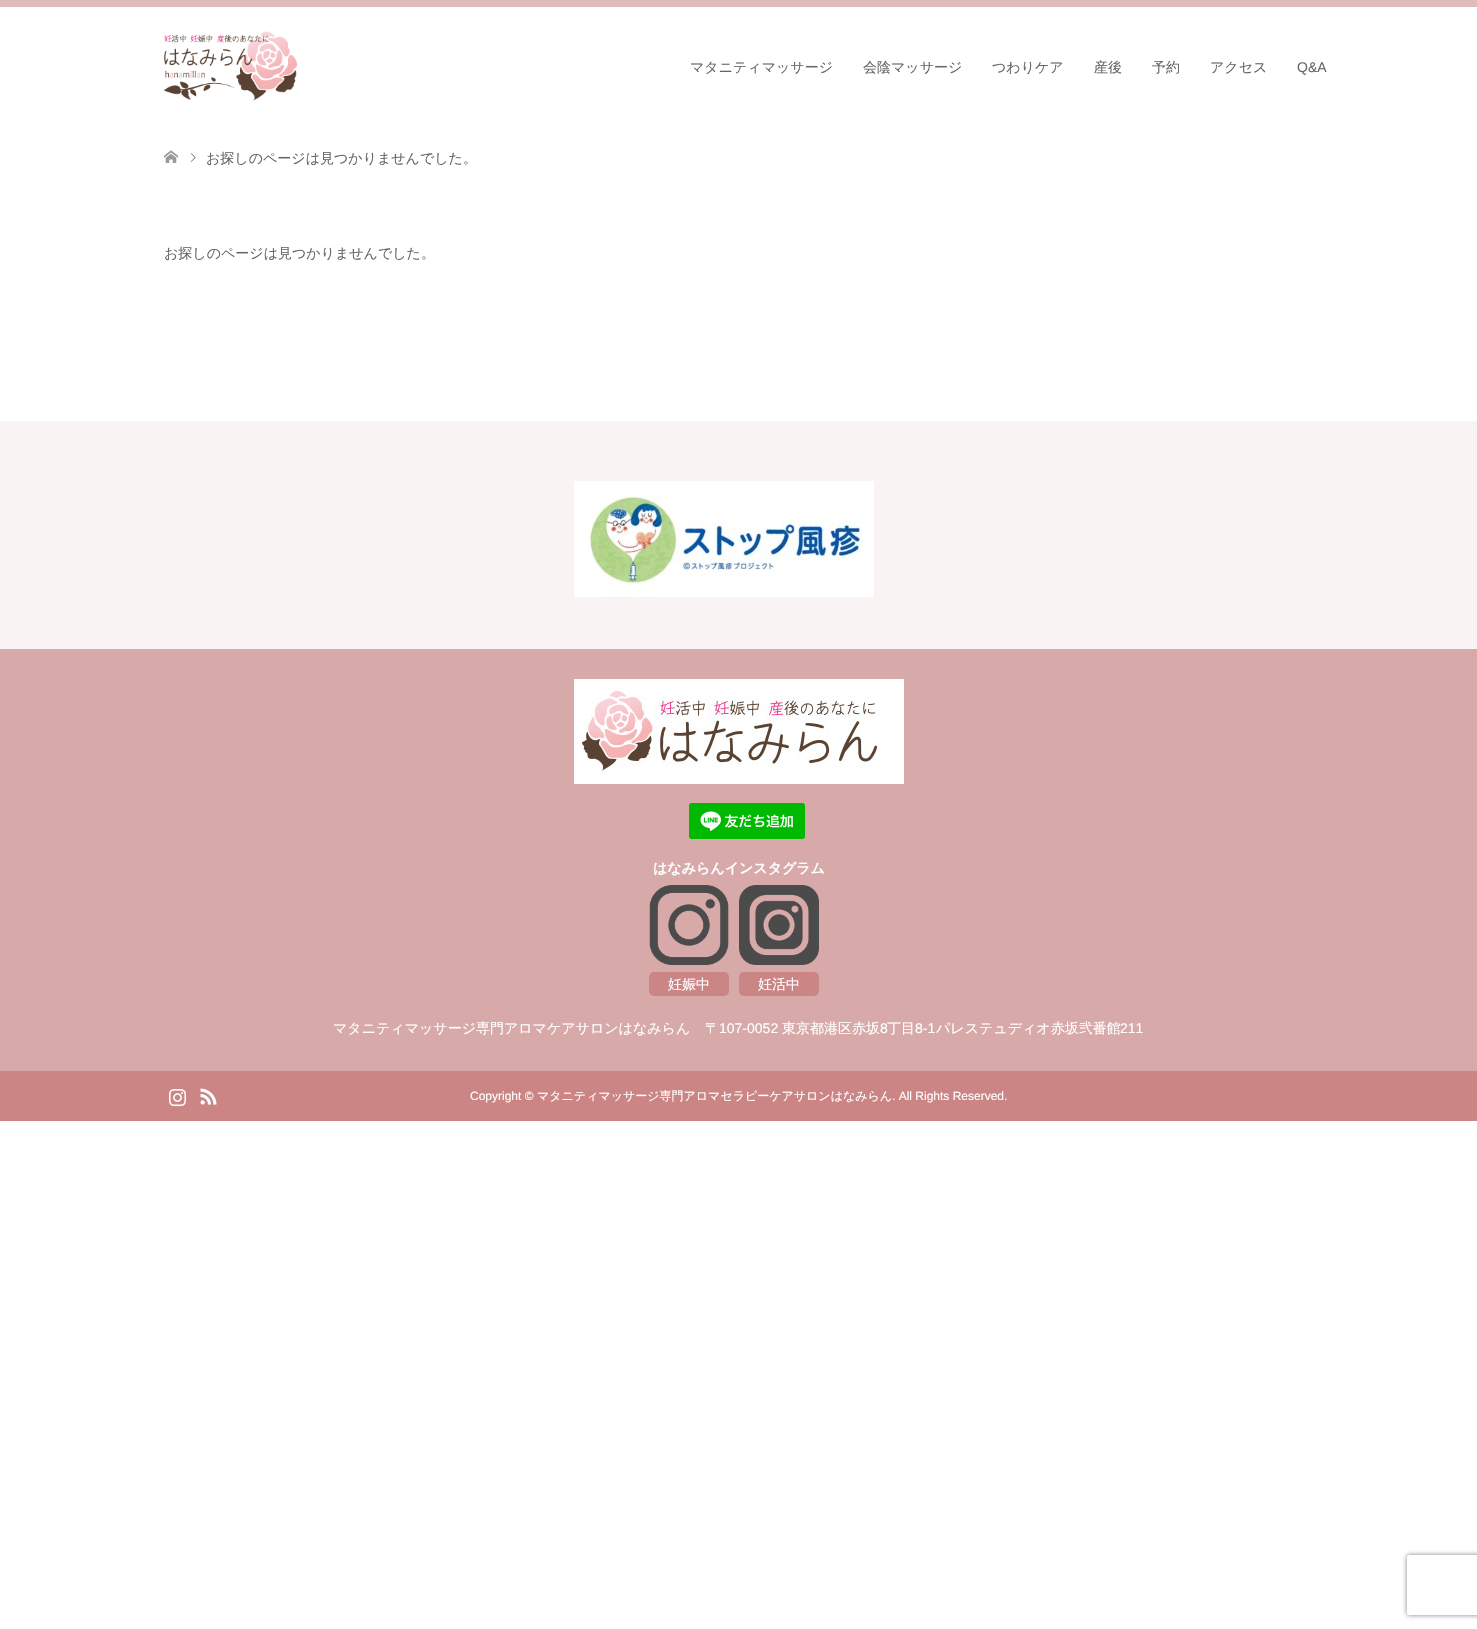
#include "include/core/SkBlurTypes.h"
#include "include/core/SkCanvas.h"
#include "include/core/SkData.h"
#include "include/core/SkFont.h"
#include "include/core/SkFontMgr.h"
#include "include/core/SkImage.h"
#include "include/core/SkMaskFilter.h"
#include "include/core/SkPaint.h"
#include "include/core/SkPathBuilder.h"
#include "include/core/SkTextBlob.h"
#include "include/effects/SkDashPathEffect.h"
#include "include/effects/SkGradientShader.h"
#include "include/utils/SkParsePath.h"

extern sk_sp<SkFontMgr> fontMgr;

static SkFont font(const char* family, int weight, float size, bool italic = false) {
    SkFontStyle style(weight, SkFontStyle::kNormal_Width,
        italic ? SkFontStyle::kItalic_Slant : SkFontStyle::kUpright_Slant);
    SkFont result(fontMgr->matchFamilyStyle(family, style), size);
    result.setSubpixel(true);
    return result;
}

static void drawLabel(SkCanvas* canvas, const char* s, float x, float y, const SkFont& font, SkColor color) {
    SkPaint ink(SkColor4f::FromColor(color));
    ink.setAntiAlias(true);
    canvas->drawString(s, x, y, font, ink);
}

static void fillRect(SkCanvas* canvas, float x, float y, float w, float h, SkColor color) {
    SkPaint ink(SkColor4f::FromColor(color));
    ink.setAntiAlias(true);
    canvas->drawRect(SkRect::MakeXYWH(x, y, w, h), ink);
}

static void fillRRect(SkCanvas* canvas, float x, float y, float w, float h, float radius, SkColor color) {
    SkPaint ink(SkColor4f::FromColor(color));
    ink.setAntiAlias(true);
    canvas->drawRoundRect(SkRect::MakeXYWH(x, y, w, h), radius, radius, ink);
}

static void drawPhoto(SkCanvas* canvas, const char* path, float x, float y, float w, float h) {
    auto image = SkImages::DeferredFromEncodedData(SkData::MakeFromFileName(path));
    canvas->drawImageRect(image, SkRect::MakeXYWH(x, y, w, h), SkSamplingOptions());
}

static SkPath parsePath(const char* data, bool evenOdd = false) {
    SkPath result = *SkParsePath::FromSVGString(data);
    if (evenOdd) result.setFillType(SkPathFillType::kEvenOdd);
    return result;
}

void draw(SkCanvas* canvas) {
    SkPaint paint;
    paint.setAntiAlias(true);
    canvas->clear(0xFFFFFFFF);
    fillRect(canvas, 0, 0, 1477, 7, 0xFFE1BBBB);
    drawPhoto(canvas, "assets/img1.png", 164, 31, 133, 70);
    SkFont font1 = font("WenQuanYi Zen Hei", 500, 14);
    drawLabel(canvas, "マタニティマッサージ", 690, 72, font1, 0xFF666666);
    drawLabel(canvas, "会陰マッサージ", 863, 72, font1, 0xFF666666);
    drawLabel(canvas, "つわりケア", 992, 72, font1, 0xFF666666);
    drawLabel(canvas, "産後", 1094, 72, font1, 0xFF666666);
    drawLabel(canvas, "予約", 1152, 72, font1, 0xFF666666);
    drawLabel(canvas, "アクセス", 1210, 72, font1, 0xFF666666);
    SkFont font2 = font("Liberation Sans", 400, 14);
    drawLabel(canvas, "Q&A", 1297, 72, font2, 0xFF666666);
    drawPhoto(canvas, "assets/img2.png", 164, 150, 14, 13);
    drawPhoto(canvas, "assets/img3.png", 191, 153, 5, 9);
    drawLabel(canvas, "お探しのページは見つかりませんでした。", 206, 163, font1, 0xFF666666);
    drawLabel(canvas, "お探しのページは見つかりませんでした。", 164, 258, font1, 0xFF666666);
    fillRect(canvas, 0, 421, 1477, 228, 0xFFFAF3F3);
    drawPhoto(canvas, "assets/img4.png", 574, 481, 300, 116);
    fillRect(canvas, 0, 649, 1477, 422, 0xFFD8A9A9);
    drawPhoto(canvas, "assets/img5.png", 574, 679, 330, 105);
    drawPhoto(canvas, "assets/img6.png", 689, 803, 116, 36);
    SkFont font3 = font("WenQuanYi Zen Hei", 700, 14);
    drawLabel(canvas, "はなみらんインスタグラム", 653, 873, font3, 0xFFFFFFFF);
    drawPhoto(canvas, "assets/img7.png", 649, 885, 80, 80);
    fillRRect(canvas, 649, 972, 80, 24, 5, 0xFFCB8584);
    drawLabel(canvas, "妊娠中", 668, 989, font1, 0xFFFFFFFF);
    drawPhoto(canvas, "assets/img8.png", 739, 885, 80, 80);
    fillRRect(canvas, 739, 972, 80, 24, 5, 0xFFCB8584);
    drawLabel(canvas, "妊活中", 758, 989, font1, 0xFFFFFFFF);
    drawLabel(canvas, "マタニティマッサージ専門アロマケアサロンはなみらん", 333, 1033, font1, 0xFFFFFFFF);
    drawLabel(canvas, "〒", 705, 1033, font1, 0xFFFFFFFF);
    drawLabel(canvas, "107-0052", 719, 1033, font2, 0xFFFFFFFF);
    drawLabel(canvas, "東京都港区赤坂", 782, 1033, font1, 0xFFFFFFFF);
    drawLabel(canvas, "8", 880, 1033, font2, 0xFFFFFFFF);
    drawLabel(canvas, "丁目", 887, 1033, font1, 0xFFFFFFFF);
    drawLabel(canvas, "8-1", 915, 1033, font2, 0xFFFFFFFF);
    drawLabel(canvas, "パレステュディオ赤坂弐番館", 936, 1033, font1, 0xFFFFFFFF);
    drawLabel(canvas, "211", 1120, 1033, font2, 0xFFFFFFFF);
    fillRect(canvas, 0, 1071, 1477, 50, 0xFFCB8584);
    drawPhoto(canvas, "assets/img9.png", 169, 1089, 17, 18);
    drawPhoto(canvas, "assets/img10.png", 200, 1088, 17, 17);
    SkFont font4 = font("Liberation Sans", 400, 12);
    drawLabel(canvas, "Copyright ©", 470, 1100, font4, 0xFFFFFFFF);
    SkFont font5 = font("WenQuanYi Zen Hei", 500, 12);
    drawLabel(canvas, "マタニティマッサージ専門アロマセラピーケアサロンはなみらん", 537, 1100, font5, 0xFFFFFFFF);
    drawLabel(canvas, ". All Rights Reserved.", 892, 1100, font4, 0xFFFFFFFF);
    canvas->save();
    canvas->clipPath(parsePath("M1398 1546H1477V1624H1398ZM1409 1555H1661C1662 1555 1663 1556 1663 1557V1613C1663 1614 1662 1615 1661 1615H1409C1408 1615 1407 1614 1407 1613V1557C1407 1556 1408 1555 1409 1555Z", true), true);
    paint.setColor(0xFF808080);
    paint.setMaskFilter(SkMaskFilter::MakeBlur(kNormal_SkBlurStyle, 2.5f));
    canvas->drawRoundRect(SkRect::MakeXYWH(1407, 1555, 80, 60), 2, 2, paint);
    paint.setMaskFilter(nullptr);
    canvas->restore();
}
